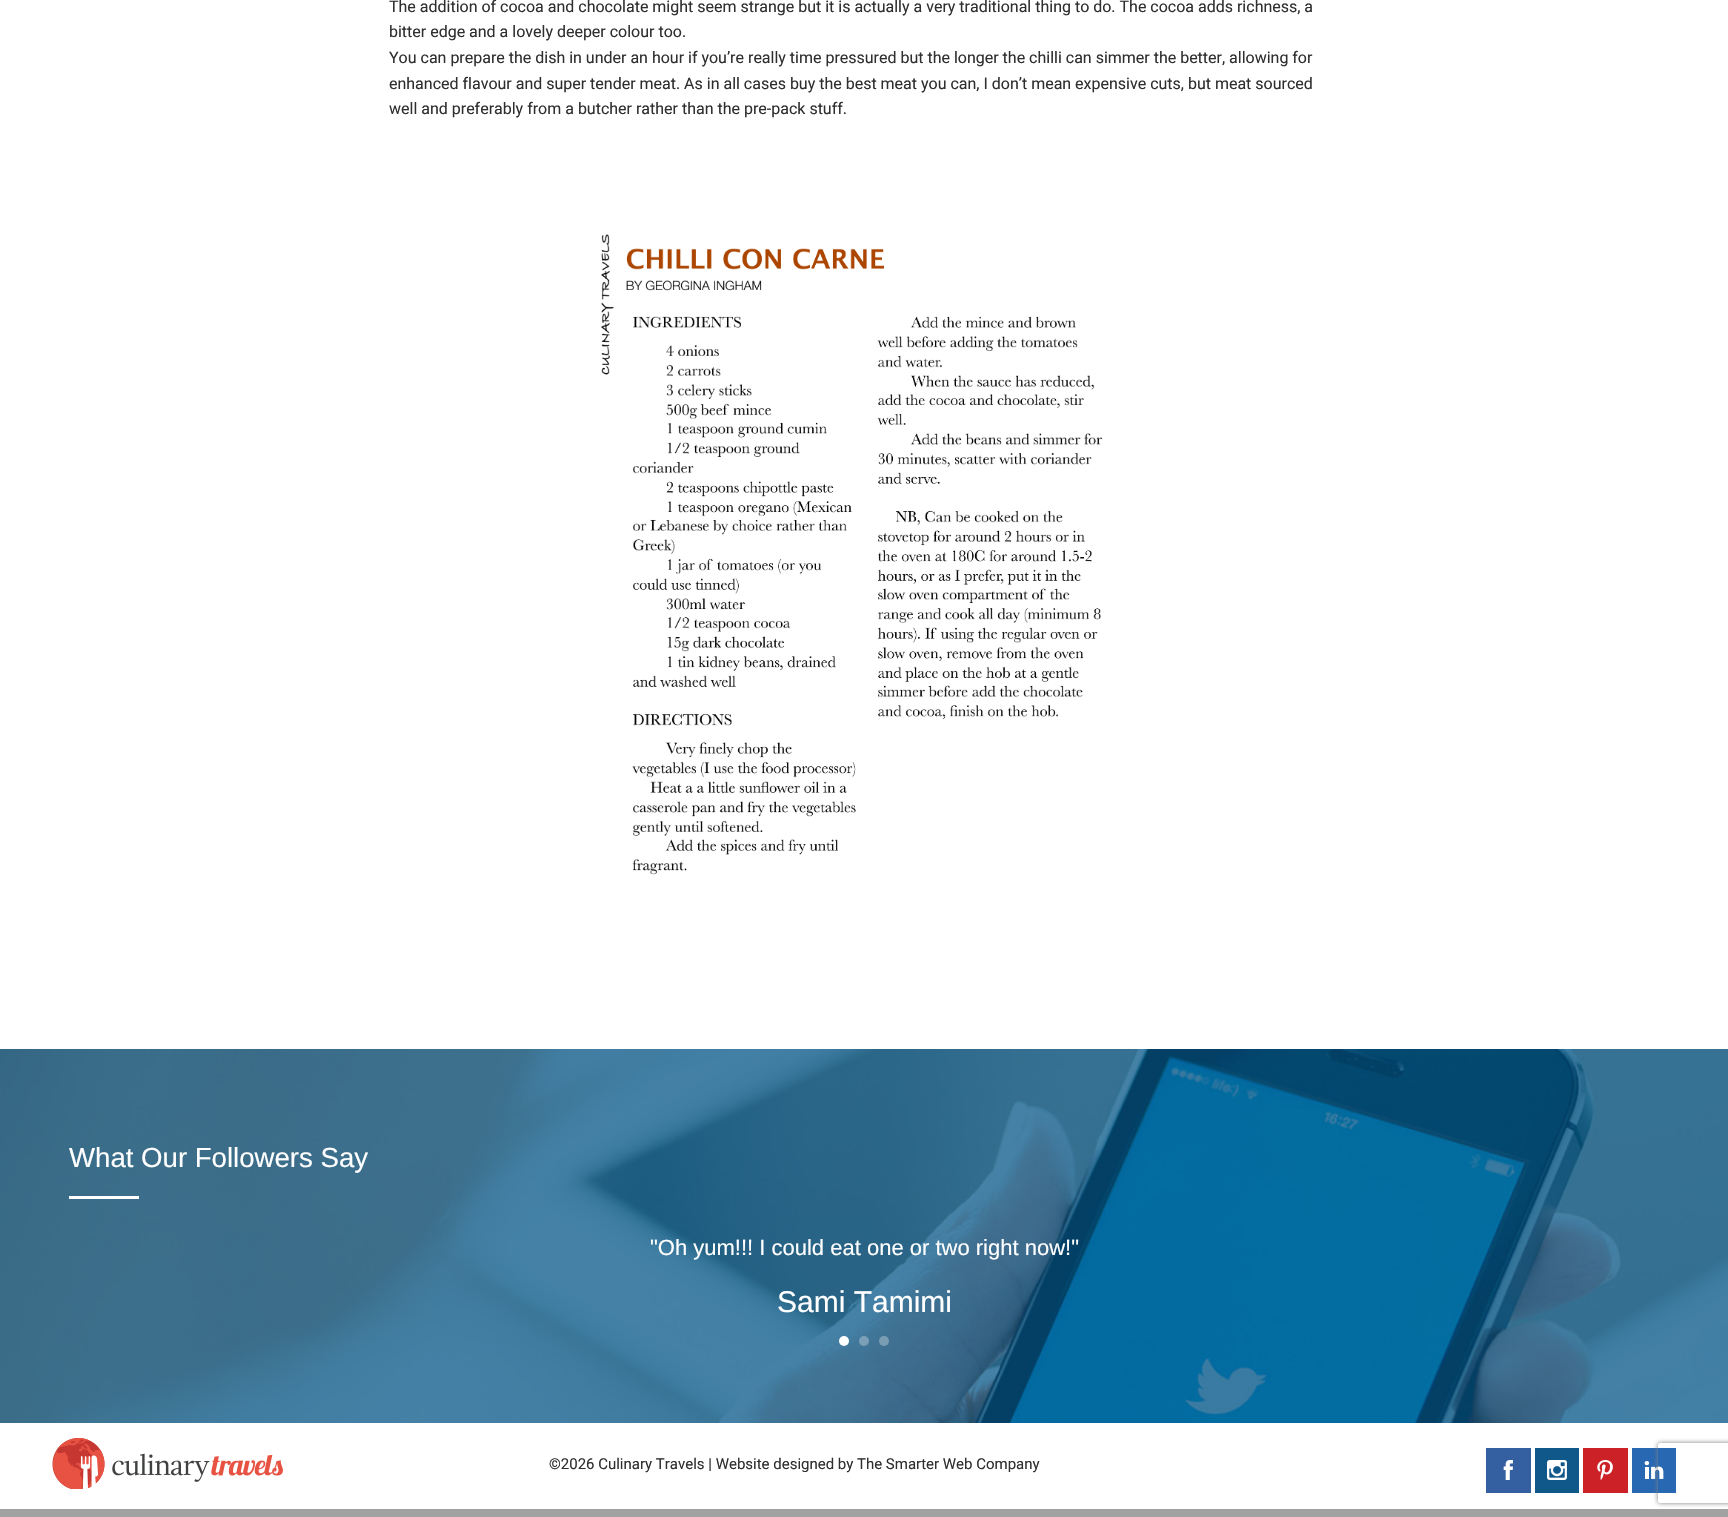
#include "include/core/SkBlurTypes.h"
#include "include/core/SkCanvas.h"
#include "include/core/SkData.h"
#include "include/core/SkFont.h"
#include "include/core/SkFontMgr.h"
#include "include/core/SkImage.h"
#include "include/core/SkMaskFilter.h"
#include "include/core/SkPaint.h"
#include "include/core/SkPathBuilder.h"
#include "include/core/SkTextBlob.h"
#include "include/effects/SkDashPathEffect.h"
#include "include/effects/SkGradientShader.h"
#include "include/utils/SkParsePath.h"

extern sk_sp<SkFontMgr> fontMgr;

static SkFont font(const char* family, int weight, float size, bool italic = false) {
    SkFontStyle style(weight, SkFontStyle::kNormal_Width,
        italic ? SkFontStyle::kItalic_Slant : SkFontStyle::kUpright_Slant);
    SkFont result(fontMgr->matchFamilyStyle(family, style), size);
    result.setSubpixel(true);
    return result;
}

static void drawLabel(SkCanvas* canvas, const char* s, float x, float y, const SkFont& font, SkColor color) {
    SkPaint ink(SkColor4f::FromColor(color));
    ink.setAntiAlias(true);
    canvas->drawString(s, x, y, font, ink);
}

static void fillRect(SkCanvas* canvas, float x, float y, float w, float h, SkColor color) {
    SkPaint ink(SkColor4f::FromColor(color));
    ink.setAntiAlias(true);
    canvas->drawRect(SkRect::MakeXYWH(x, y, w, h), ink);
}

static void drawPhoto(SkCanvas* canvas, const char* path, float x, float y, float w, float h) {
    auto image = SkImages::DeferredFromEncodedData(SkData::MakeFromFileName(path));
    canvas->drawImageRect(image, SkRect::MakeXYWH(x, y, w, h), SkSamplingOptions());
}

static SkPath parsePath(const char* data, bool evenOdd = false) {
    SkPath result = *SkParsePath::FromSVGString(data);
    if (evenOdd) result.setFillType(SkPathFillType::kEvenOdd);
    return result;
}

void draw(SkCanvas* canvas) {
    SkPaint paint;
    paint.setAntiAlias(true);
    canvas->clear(0xFFFFFFFF);
    SkFont font1 = font("Roboto", 400, 16);
    drawLabel(canvas, "The addition of cocoa and chocolate might seem strange but it is actually a very traditional thing to do. The cocoa adds richness, a", 389, 12, font1, 0xFF2F2F2F);
    drawLabel(canvas, "bitter edge and a lovely deeper colour too.", 389, 37, font1, 0xFF2F2F2F);
    drawLabel(canvas, "You can prepare the dish in under an hour if you’re really time pressured but the longer the chilli can simmer the better, allowing for", 389, 63, font1, 0xFF2F2F2F);
    drawLabel(canvas, "enhanced flavour and super tender meat. As in all cases buy the best meat you can, I don’t mean expensive cuts, but meat sourced", 389, 89, font1, 0xFF2F2F2F);
    drawLabel(canvas, "well and preferably from a butcher rather than the pre-pack stuff.", 389, 114, font1, 0xFF2F2F2F);
    drawPhoto(canvas, "assets/img1.png", 601, 234, 501, 641);
    drawPhoto(canvas, "assets/img2.png", 0, 1049, 1728, 374);
    SkFont font2 = font("Liberation Sans", 400, 27.6f);
    drawLabel(canvas, "What Our Followers Say", 69, 1167, font2, 0xFFFFFFFF);
    fillRect(canvas, 69, 1196, 70, 3, 0xFFFFFFFF);
    SkFont font3 = font("Liberation Sans", 400, 22);
    drawLabel(canvas, "\"Oh yum!!! I could eat one or two right now!\"", 650, 1255, font3, 0xFFFFFFFF);
    SkFont font4 = font("Liberation Sans", 400, 30);
    drawLabel(canvas, "Sami Tamimi", 777, 1312, font4, 0xFFFFFFFF);
    paint.setColor(0xFFFFFFFF);
    canvas->drawCircle(844, 1341, 5, paint);
    paint.setColor(0x4DFFFFFF);
    canvas->drawCircle(864, 1341, 5, paint);
    canvas->drawCircle(884, 1341, 5, paint);
    fillRect(canvas, 0, 1509, 1728, 8, 0xFFA1A1A1);
    drawPhoto(canvas, "assets/img3.png", 52, 1438, 231, 51);
    SkFont font5 = font("Roboto", 400, 15);
    drawLabel(canvas, "©2026 Culinary Travels | Website designed by", 549, 1469, font5, 0xFF2F2F2F);
    drawLabel(canvas, "The Smarter Web Company", 857, 1469, font5, 0xFF2F2F2F);
    fillRect(canvas, 1486, 1448, 45, 45, 0xFF3460A1);
    drawPhoto(canvas, "assets/img4.png", 1503, 1460, 10, 20);
    fillRect(canvas, 1535, 1448, 44, 45, 0xFF11588A);
    drawPhoto(canvas, "assets/img5.png", 1547, 1460, 20, 20);
    fillRect(canvas, 1583, 1448, 45, 45, 0xFFCC2127);
    drawPhoto(canvas, "assets/img6.png", 1597, 1460, 16, 20);
    fillRect(canvas, 1632, 1448, 44, 45, 0xFF2867B2);
    drawPhoto(canvas, "assets/img7.png", 1644, 1461, 20, 18);
    canvas->save();
    canvas->clipPath(parsePath("M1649 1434H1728V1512H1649ZM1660 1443H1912C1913 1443 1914 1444 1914 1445V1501C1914 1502 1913 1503 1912 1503H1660C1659 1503 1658 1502 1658 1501V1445C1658 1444 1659 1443 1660 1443Z", true), true);
    paint.setColor(0xFF808080);
    paint.setMaskFilter(SkMaskFilter::MakeBlur(kNormal_SkBlurStyle, 2.5f));
    canvas->drawRoundRect(SkRect::MakeXYWH(1658, 1443, 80, 60), 2, 2, paint);
    paint.setMaskFilter(nullptr);
    canvas->restore();
}
